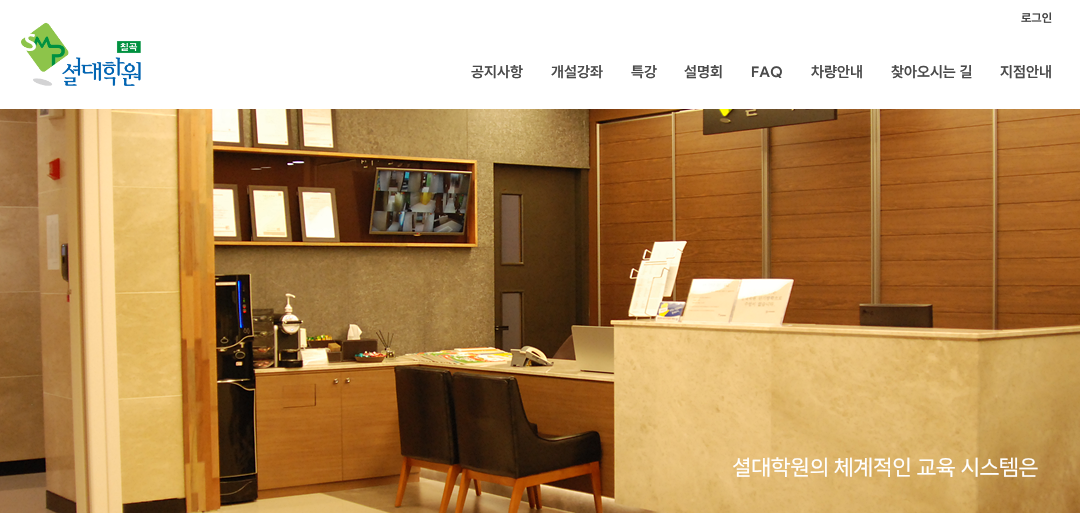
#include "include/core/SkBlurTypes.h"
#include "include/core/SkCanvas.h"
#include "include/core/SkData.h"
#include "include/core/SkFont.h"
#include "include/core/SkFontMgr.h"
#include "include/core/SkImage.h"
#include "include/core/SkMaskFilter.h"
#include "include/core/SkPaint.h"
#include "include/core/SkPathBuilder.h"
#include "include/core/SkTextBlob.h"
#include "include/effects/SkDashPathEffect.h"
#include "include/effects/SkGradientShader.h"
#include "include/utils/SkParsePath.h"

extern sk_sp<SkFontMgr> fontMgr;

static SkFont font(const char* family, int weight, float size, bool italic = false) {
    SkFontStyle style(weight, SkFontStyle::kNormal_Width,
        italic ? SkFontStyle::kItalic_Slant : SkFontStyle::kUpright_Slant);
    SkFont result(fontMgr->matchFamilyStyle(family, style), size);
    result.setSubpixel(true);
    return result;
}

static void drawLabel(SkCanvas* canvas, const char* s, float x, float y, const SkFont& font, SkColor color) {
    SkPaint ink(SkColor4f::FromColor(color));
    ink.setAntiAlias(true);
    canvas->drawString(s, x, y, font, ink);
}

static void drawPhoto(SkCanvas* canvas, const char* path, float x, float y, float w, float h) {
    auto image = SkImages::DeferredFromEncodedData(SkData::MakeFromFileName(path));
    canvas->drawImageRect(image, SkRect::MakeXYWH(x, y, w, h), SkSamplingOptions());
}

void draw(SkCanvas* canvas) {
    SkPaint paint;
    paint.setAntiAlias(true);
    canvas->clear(0xFFFFFFFF);
    drawPhoto(canvas, "assets/img1.png", 21, 22, 120, 64);
    SkFont font1 = font("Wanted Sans", 600, 12);
    drawLabel(canvas, "로그인", 1021, 22, font1, 0xFF3F3F3F);
    SkFont font2 = font("Wanted Sans", 600, 15);
    drawLabel(canvas, "공지사항", 471, 77, font2, 0xFF4A4A4A);
    drawLabel(canvas, "개설강좌", 551, 77, font2, 0xFF4A4A4A);
    drawLabel(canvas, "특강", 631, 77, font2, 0xFF4A4A4A);
    drawLabel(canvas, "설명회", 684, 77, font2, 0xFF4A4A4A);
    drawLabel(canvas, "FAQ", 751, 77, font2, 0xFF4A4A4A);
    drawLabel(canvas, "차량안내", 811, 77, font2, 0xFF4A4A4A);
    drawLabel(canvas, "찾아오시는 길", 891, 77, font2, 0xFF4A4A4A);
    drawLabel(canvas, "지점안내", 1000, 77, font2, 0xFF4A4A4A);
    drawPhoto(canvas, "assets/img2.png", 0, 109, 1080, 404);
    SkFont font3 = font("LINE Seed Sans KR", 400, 22);
    drawLabel(canvas, "셜대학원의 체계적인 교육 시스템은", 732, 475, font3, 0xFFFFFFFF);
}
